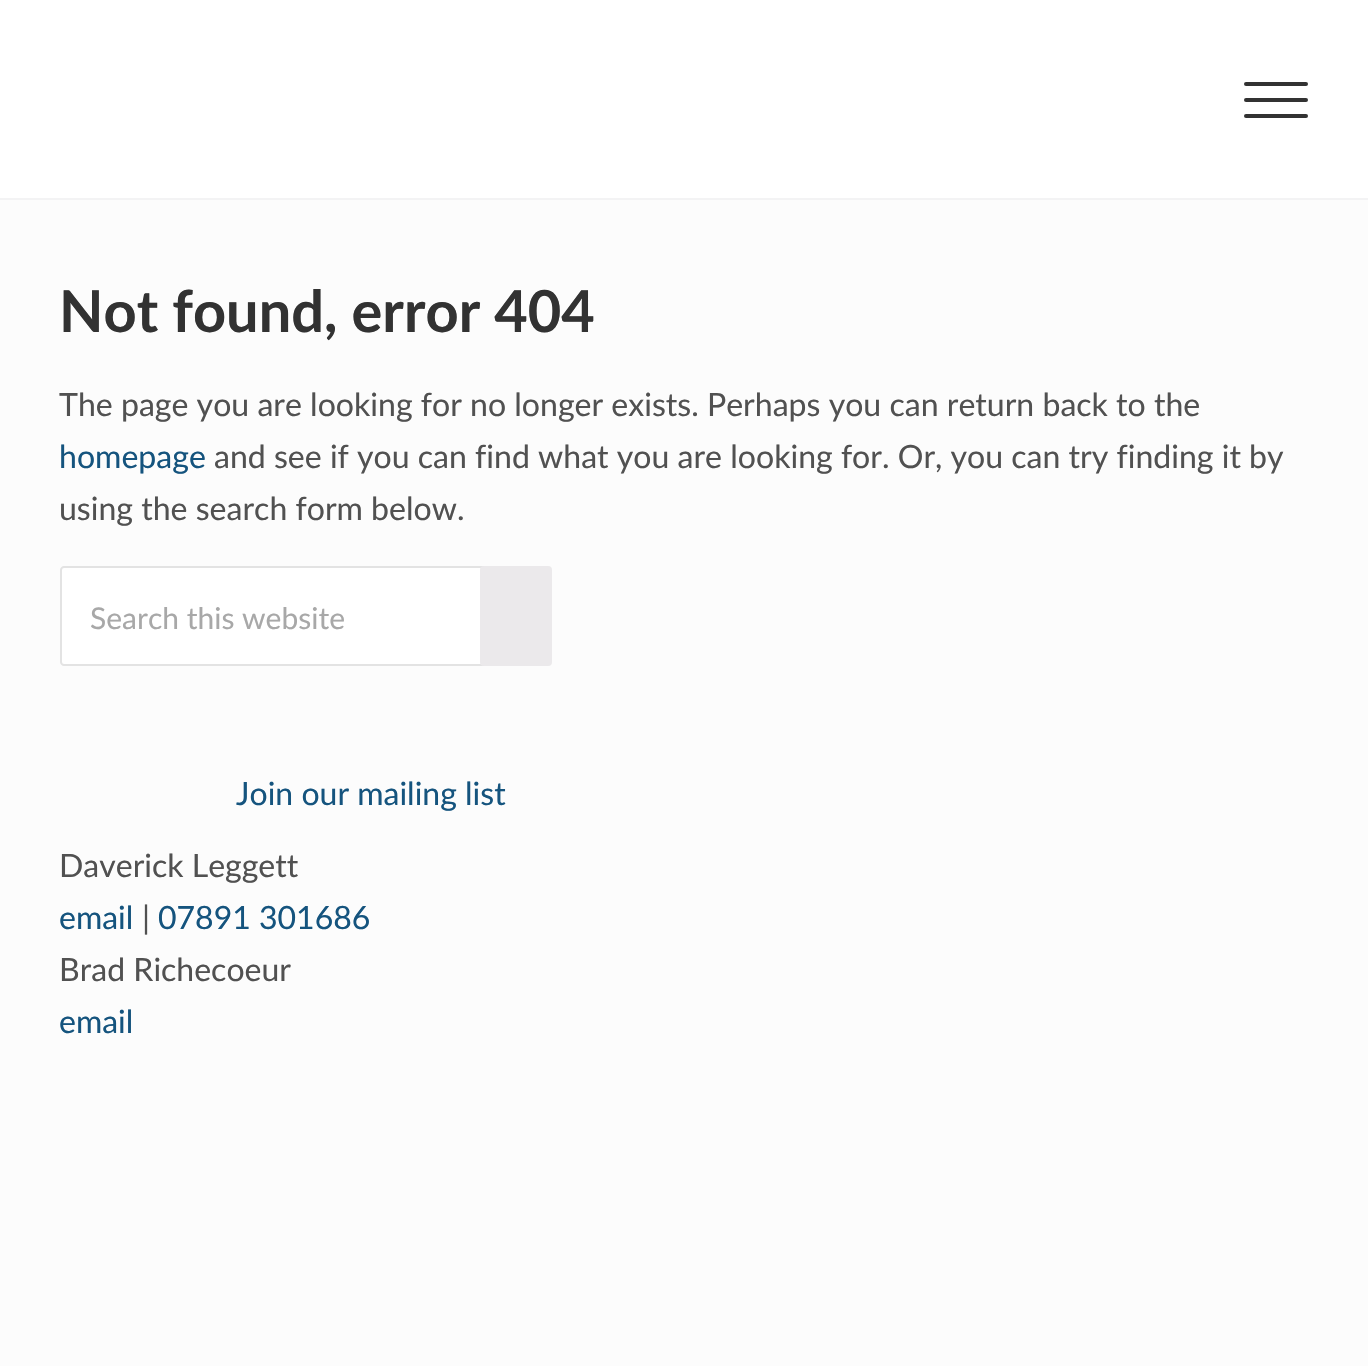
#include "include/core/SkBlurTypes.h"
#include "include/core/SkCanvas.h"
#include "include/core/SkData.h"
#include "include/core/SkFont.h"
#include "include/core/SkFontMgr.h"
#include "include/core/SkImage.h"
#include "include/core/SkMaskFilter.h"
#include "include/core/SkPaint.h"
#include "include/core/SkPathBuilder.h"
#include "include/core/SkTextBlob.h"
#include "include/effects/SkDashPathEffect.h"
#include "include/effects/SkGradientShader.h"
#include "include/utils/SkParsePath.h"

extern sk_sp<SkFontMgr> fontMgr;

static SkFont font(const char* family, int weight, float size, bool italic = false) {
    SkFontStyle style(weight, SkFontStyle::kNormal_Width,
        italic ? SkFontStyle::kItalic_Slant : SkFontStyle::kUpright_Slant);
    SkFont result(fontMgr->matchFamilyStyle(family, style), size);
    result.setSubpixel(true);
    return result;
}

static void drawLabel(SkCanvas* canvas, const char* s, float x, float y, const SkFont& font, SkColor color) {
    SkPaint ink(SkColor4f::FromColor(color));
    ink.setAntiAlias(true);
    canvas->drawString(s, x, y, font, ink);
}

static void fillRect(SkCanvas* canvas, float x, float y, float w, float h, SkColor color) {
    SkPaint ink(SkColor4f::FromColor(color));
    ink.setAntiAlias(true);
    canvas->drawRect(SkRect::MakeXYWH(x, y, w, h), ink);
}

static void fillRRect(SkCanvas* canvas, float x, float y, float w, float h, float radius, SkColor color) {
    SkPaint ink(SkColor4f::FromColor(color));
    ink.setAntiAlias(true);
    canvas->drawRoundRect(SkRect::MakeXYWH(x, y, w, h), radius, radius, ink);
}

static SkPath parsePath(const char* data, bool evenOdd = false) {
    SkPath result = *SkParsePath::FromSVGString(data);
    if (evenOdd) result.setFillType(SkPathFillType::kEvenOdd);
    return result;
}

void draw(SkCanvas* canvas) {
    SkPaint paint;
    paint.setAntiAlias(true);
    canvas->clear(0xFFFCFCFC);
    fillRect(canvas, 0, 0, 1368, 198, 0xFFFFFFFF);
    fillRect(canvas, 0, 198, 1368, 2, 0xFFF3F3F4);
    fillRRect(canvas, 1244, 98, 64, 4, 2, 0xFF323232);
    fillRRect(canvas, 1244, 82, 64, 4, 2, 0xFF323232);
    fillRRect(canvas, 1244, 114, 64, 4, 2, 0xFF323232);
    SkFont font1 = font("Lato", 700, 57.75f);
    drawLabel(canvas, "Not found, error 404", 59, 332, font1, 0xFF323232);
    SkFont font2 = font("Lato", 400, 32.05f);
    drawLabel(canvas, "The page you are looking for no longer exists. Perhaps you can return back to the", 59, 416, font2, 0xFF515151);
    drawLabel(canvas, "homepage", 59, 468, font2, 0xFF15547E);
    drawLabel(canvas, "and see if you can find what you are looking for. Or, you can try finding it by", 214, 468, font2, 0xFF515151);
    drawLabel(canvas, "using the search form below.", 59, 520, font2, 0xFF515151);
    paint.setColor(0xFFFFFFFF);
    canvas->drawPath(parsePath("M64 567H523V665H64C62.5 665 61 663.5 61 662V570C61 568.5 62.5 567 64 567Z"), paint);
    paint.setStroke(true);
    paint.setStrokeWidth(2);
    paint.setColor(0xFFE3E3E3);
    canvas->drawPath(parsePath("M64 567H523V665H64C62.5 665 61 663.5 61 662V570C61 568.5 62.5 567 64 567Z"), paint);
    SkFont font3 = font("Lato", 400, 30);
    drawLabel(canvas, "Search this website", 90, 629, font3, 0xFFA8A8A8);
    fillRRect(canvas, 480, 566, 72, 100, 4, 0xFFEBE9EB);
    SkFont font4 = font("Lato", 400, 32);
    drawLabel(canvas, "Join our mailing list", 236, 805, font4, 0xFF15547E);
    drawLabel(canvas, "Daverick Leggett", 59, 877, font4, 0xFF515151);
    drawLabel(canvas, "email", 59, 929, font4, 0xFF15547E);
    drawLabel(canvas, "|", 142, 929, font4, 0xFF515151);
    drawLabel(canvas, "07891 301686", 158, 929, font4, 0xFF15547E);
    drawLabel(canvas, "Brad Richecoeur", 59, 981, font4, 0xFF515151);
    drawLabel(canvas, "email", 59, 1033, font4, 0xFF15547E);
}
